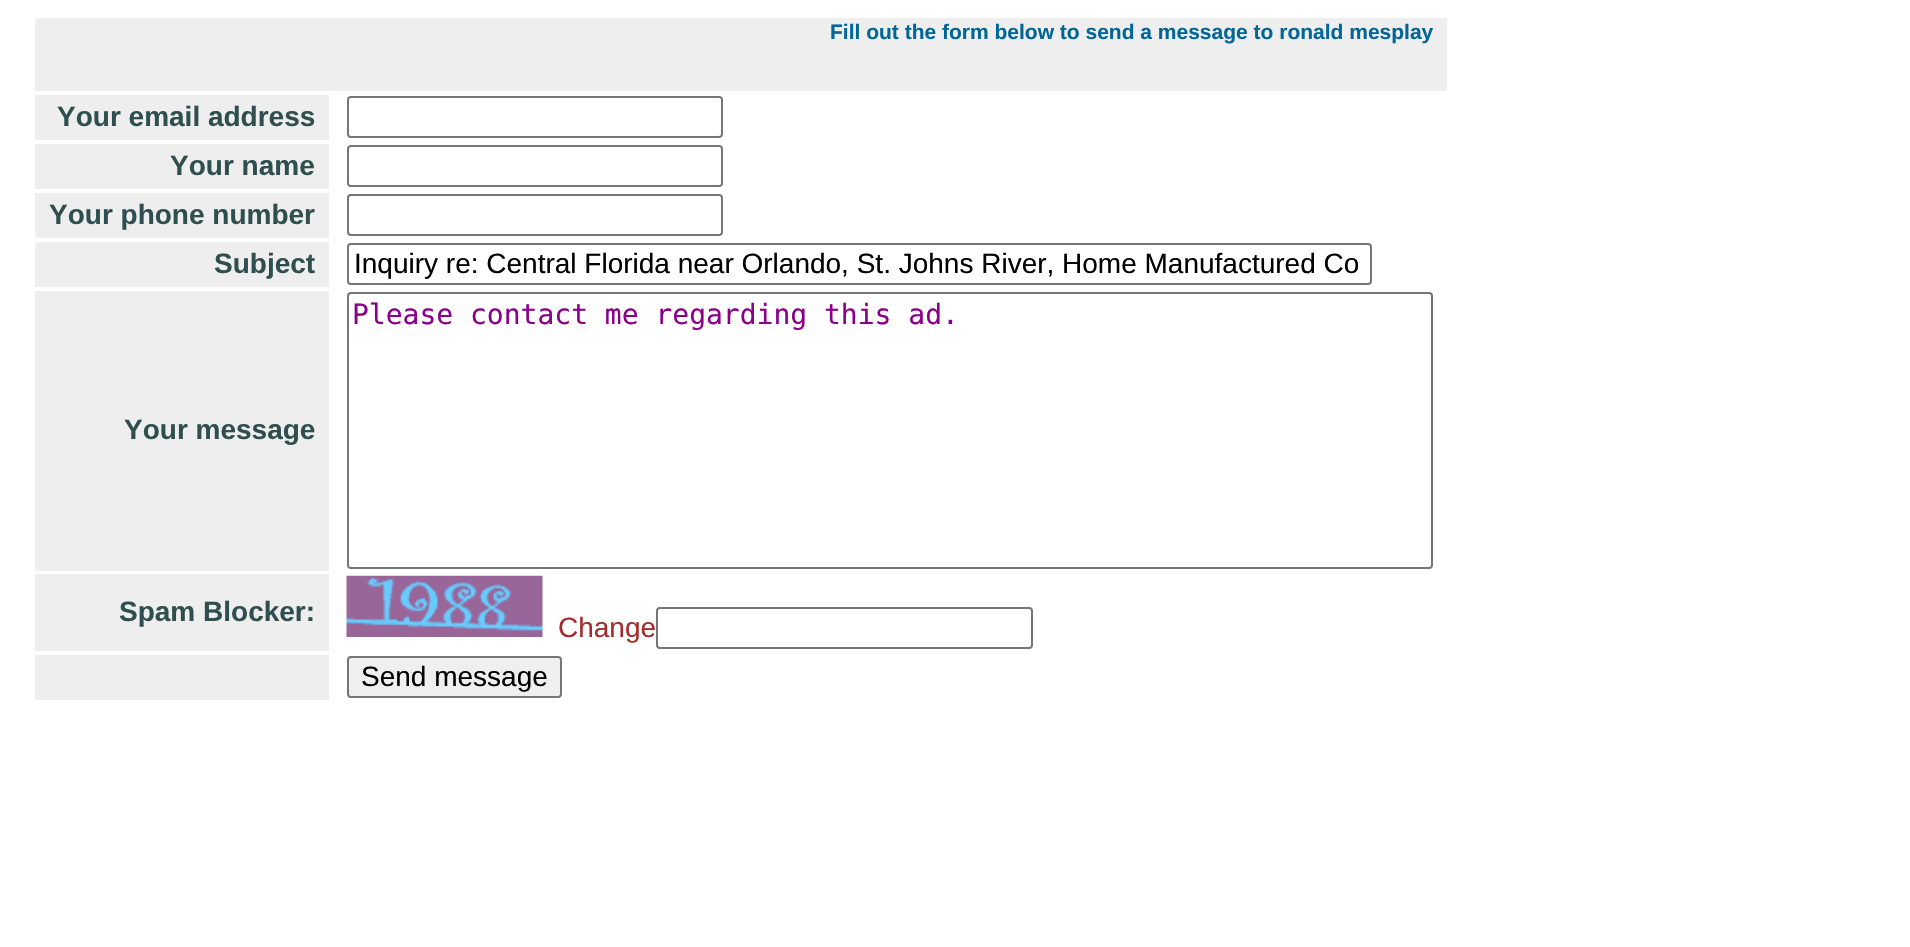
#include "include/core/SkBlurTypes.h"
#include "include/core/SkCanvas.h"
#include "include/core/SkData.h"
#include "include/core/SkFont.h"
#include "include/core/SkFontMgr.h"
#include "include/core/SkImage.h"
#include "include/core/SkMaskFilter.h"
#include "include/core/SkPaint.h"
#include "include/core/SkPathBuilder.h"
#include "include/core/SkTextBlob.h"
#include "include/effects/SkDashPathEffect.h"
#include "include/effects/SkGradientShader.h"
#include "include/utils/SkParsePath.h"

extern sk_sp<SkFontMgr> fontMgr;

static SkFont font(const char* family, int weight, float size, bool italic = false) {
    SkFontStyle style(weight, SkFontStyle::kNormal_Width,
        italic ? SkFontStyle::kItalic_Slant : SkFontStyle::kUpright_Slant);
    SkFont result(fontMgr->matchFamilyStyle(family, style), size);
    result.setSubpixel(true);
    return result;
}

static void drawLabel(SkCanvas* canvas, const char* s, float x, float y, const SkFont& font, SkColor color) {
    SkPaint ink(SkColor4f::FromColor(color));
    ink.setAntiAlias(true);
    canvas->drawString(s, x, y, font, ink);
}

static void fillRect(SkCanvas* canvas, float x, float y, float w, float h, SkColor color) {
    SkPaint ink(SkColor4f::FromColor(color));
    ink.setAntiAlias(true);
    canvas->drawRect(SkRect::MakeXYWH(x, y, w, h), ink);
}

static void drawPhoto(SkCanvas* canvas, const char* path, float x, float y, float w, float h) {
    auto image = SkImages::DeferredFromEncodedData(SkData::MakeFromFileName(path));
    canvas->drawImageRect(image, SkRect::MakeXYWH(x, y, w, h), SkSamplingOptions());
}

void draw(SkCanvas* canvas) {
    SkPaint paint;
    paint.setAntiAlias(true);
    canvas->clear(0xFFFFFFFF);
    fillRect(canvas, 35, 18, 1412, 73, 0xFFEEEEEE);
    SkFont font1 = font("Liberation Sans", 700, 21);
    drawLabel(canvas, "Fill out the form below to send a message to ronald mesplay", 830, 39, font1, 0xFF006699);
    fillRect(canvas, 35, 95, 294, 45, 0xFFEEEEEE);
    SkFont font2 = font("Liberation Sans", 700, 28);
    drawLabel(canvas, "Your email address", 57, 126, font2, 0xFF2F4F4F);
    paint.setStroke(true);
    paint.setStrokeWidth(2);
    paint.setColor(0xFF767676);
    canvas->drawRoundRect(SkRect::MakeXYWH(348, 97, 374, 40), 3, 3, paint);
    fillRect(canvas, 35, 144, 294, 45, 0xFFEEEEEE);
    drawLabel(canvas, "Your name", 170, 175, font2, 0xFF2F4F4F);
    canvas->drawRoundRect(SkRect::MakeXYWH(348, 146, 374, 40), 3, 3, paint);
    fillRect(canvas, 35, 193, 294, 45, 0xFFEEEEEE);
    drawLabel(canvas, "Your phone number", 49, 224, font2, 0xFF2F4F4F);
    canvas->drawRoundRect(SkRect::MakeXYWH(348, 195, 374, 40), 3, 3, paint);
    fillRect(canvas, 35, 242, 294, 45, 0xFFEEEEEE);
    drawLabel(canvas, "Subject", 214, 273, font2, 0xFF2F4F4F);
    canvas->drawRoundRect(SkRect::MakeXYWH(348, 244, 1023, 40), 3, 3, paint);
    SkFont font3 = font("Liberation Sans", 400, 28);
    drawLabel(canvas, "Inquiry re: Central Florida near Orlando, St. Johns River, Home Manufactured Co", 354, 273, font3, 0xFF000000);
    canvas->drawRoundRect(SkRect::MakeXYWH(348, 293, 1084, 275), 3, 3, paint);
    SkFont font4 = font("DejaVu Sans Mono", 400, 28);
    drawLabel(canvas, "Please contact me regarding this ad.", 352, 324, font4, 0xFF8B008B);
    fillRect(canvas, 35, 291, 294, 280, 0xFFEEEEEE);
    drawLabel(canvas, "Your message", 124, 439, font2, 0xFF2F4F4F);
    fillRect(canvas, 35, 574, 294, 77, 0xFFEEEEEE);
    drawLabel(canvas, "Spam Blocker:", 119, 621, font2, 0xFF2F4F4F);
    drawPhoto(canvas, "assets/img1.png", 346, 575, 197, 62);
    drawLabel(canvas, "Change", 558, 637, font3, 0xFFA52A2A);
    canvas->drawRoundRect(SkRect::MakeXYWH(657, 608, 375, 40), 3, 3, paint);
    fillRect(canvas, 35, 655, 294, 45, 0xFFEEEEEE);
    paint.setStroke(false);
    paint.setColor(0xFFEFEFEF);
    canvas->drawRoundRect(SkRect::MakeXYWH(348, 657, 213, 40), 3, 3, paint);
    paint.setStroke(true);
    paint.setColor(0xFF767676);
    canvas->drawRoundRect(SkRect::MakeXYWH(348, 657, 213, 40), 3, 3, paint);
    drawLabel(canvas, "Send message", 361, 686, font3, 0xFF000000);
}
